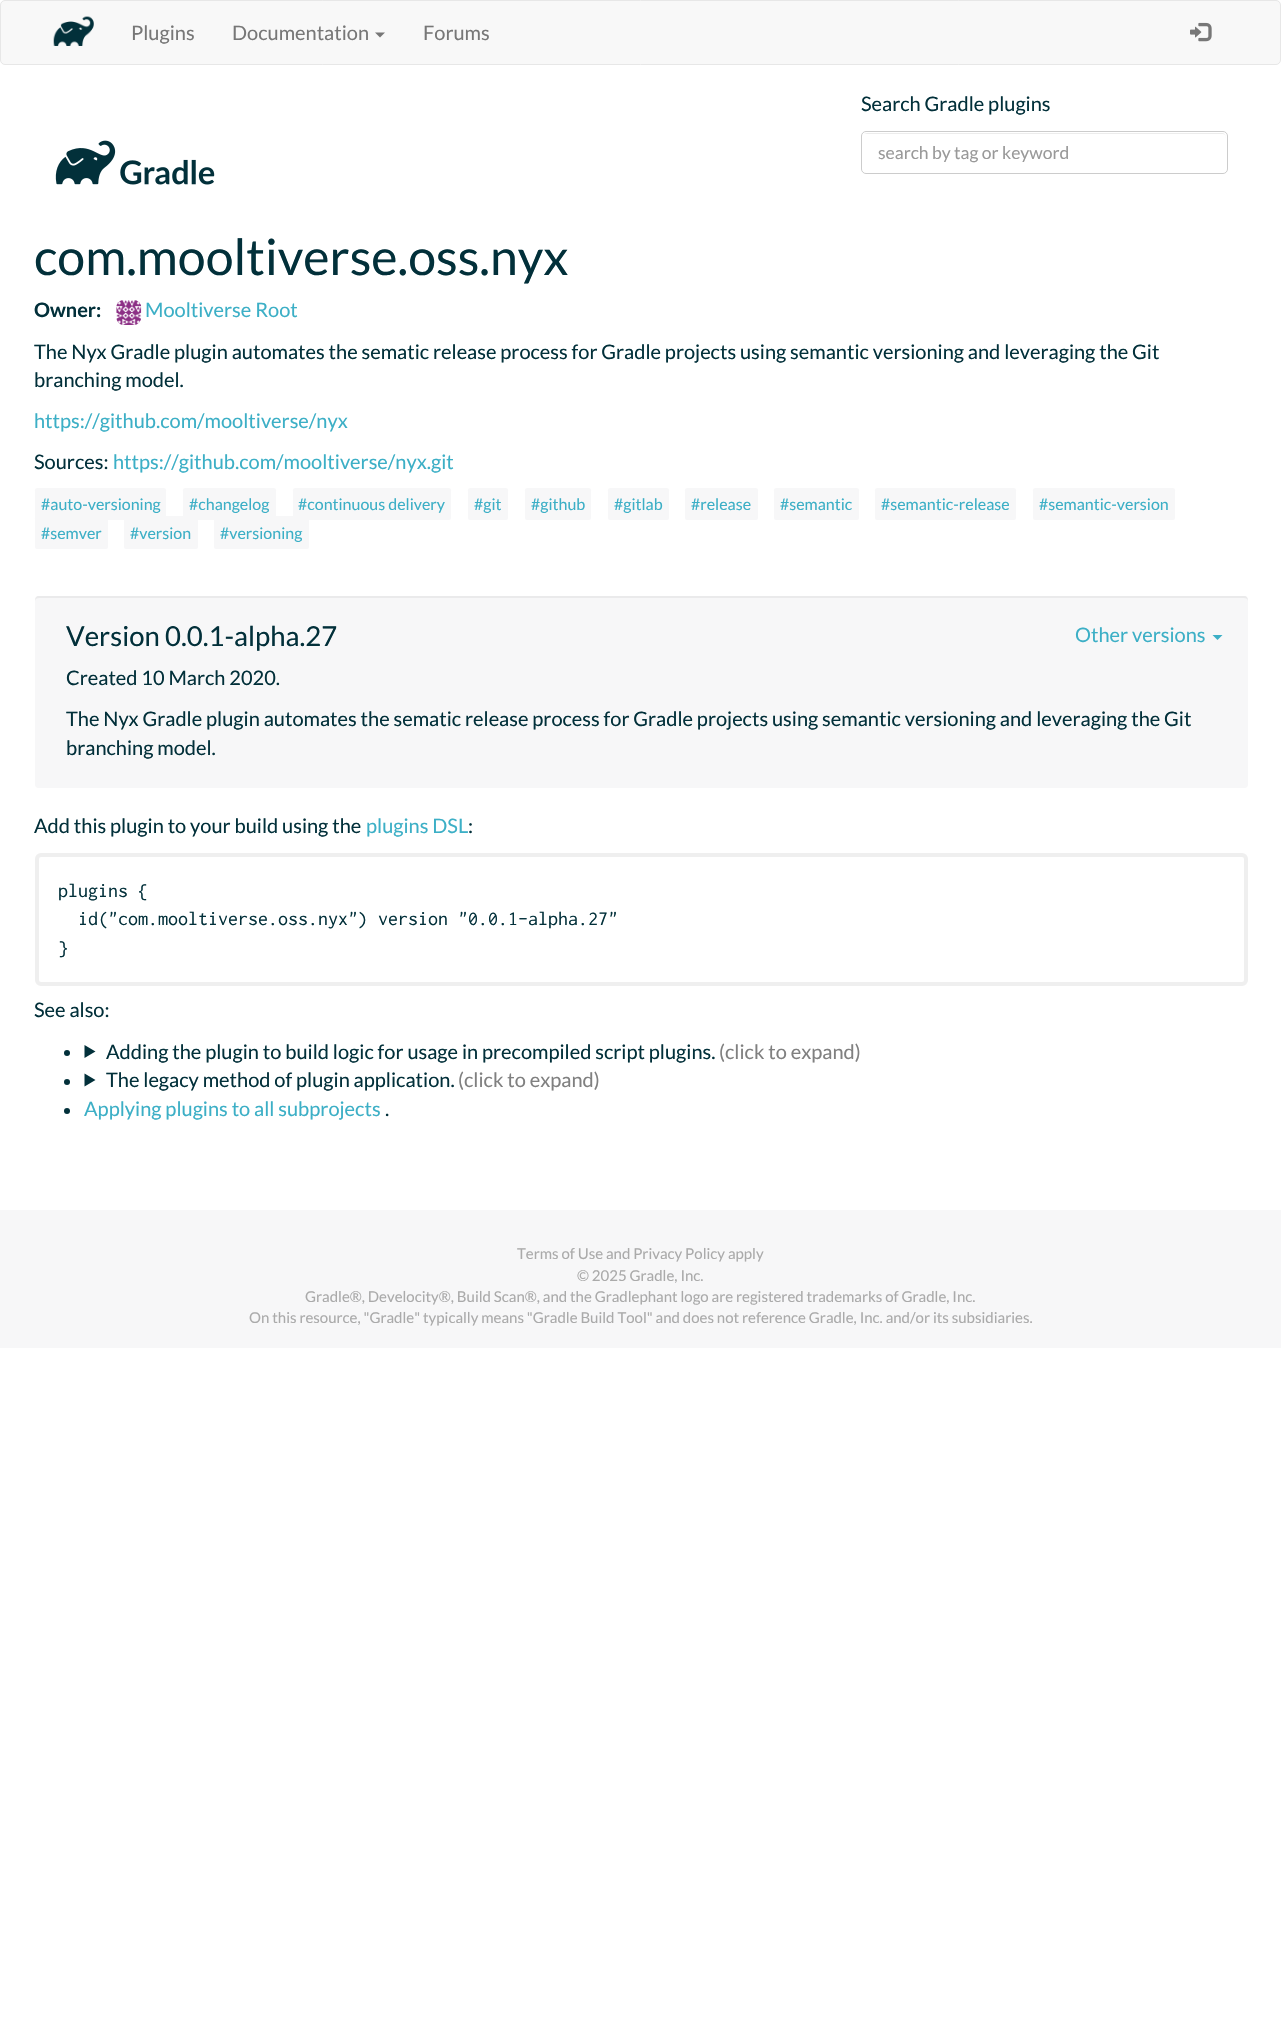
#include "include/core/SkBlurTypes.h"
#include "include/core/SkCanvas.h"
#include "include/core/SkData.h"
#include "include/core/SkFont.h"
#include "include/core/SkFontMgr.h"
#include "include/core/SkImage.h"
#include "include/core/SkMaskFilter.h"
#include "include/core/SkPaint.h"
#include "include/core/SkPathBuilder.h"
#include "include/core/SkTextBlob.h"
#include "include/effects/SkDashPathEffect.h"
#include "include/effects/SkGradientShader.h"
#include "include/utils/SkParsePath.h"

extern sk_sp<SkFontMgr> fontMgr;

static SkFont font(const char* family, int weight, float size, bool italic = false) {
    SkFontStyle style(weight, SkFontStyle::kNormal_Width,
        italic ? SkFontStyle::kItalic_Slant : SkFontStyle::kUpright_Slant);
    SkFont result(fontMgr->matchFamilyStyle(family, style), size);
    result.setSubpixel(true);
    return result;
}

static void drawLabel(SkCanvas* canvas, const char* s, float x, float y, const SkFont& font, SkColor color) {
    SkPaint ink(SkColor4f::FromColor(color));
    ink.setAntiAlias(true);
    canvas->drawString(s, x, y, font, ink);
}

static void fillRect(SkCanvas* canvas, float x, float y, float w, float h, SkColor color) {
    SkPaint ink(SkColor4f::FromColor(color));
    ink.setAntiAlias(true);
    canvas->drawRect(SkRect::MakeXYWH(x, y, w, h), ink);
}

static void fillRRect(SkCanvas* canvas, float x, float y, float w, float h, float radius, SkColor color) {
    SkPaint ink(SkColor4f::FromColor(color));
    ink.setAntiAlias(true);
    canvas->drawRoundRect(SkRect::MakeXYWH(x, y, w, h), radius, radius, ink);
}

static void drawPhoto(SkCanvas* canvas, const char* path, float x, float y, float w, float h) {
    auto image = SkImages::DeferredFromEncodedData(SkData::MakeFromFileName(path));
    canvas->drawImageRect(image, SkRect::MakeXYWH(x, y, w, h), SkSamplingOptions());
}

static SkPath parsePath(const char* data, bool evenOdd = false) {
    SkPath result = *SkParsePath::FromSVGString(data);
    if (evenOdd) result.setFillType(SkPathFillType::kEvenOdd);
    return result;
}

void draw(SkCanvas* canvas) {
    SkPaint paint;
    paint.setAntiAlias(true);
    canvas->clear(0xFFFFFFFF);
    paint.setColor(0xFFF8F8F8);
    canvas->drawRoundRect(SkRect::MakeXYWH(0.5f, 0.5f, 1280, 64), 4.5f, 4.5f, paint);
    paint.setStroke(true);
    paint.setStrokeWidth(1);
    paint.setColor(0xFFE7E7E7);
    canvas->drawRoundRect(SkRect::MakeXYWH(0.5f, 0.5f, 1280, 64), 4.5f, 4.5f, paint);
    drawPhoto(canvas, "assets/img1.png", 53, 16, 41, 30);
    SkFont font1 = font("Lato", 400, 20);
    drawLabel(canvas, "Plugins", 131, 40, font1, 0xFF777777);
    drawLabel(canvas, "Documentation", 232, 40, font1, 0xFF777777);
    paint.setStroke(false);
    paint.setColor(0xFF777777);
    canvas->drawPath(parsePath("M375 32.5H385L380 37.5Z"), paint);
    drawLabel(canvas, "Forums", 423, 40, font1, 0xFF777777);
    drawPhoto(canvas, "assets/img2.png", 1190, 22, 22, 20);
    drawPhoto(canvas, "assets/img3.png", 55, 140, 160, 45);
    drawLabel(canvas, "Search Gradle plugins", 861, 111, font1, 0xFF02303A);
    paint.setColor(0xFFECECEC);
    canvas->drawPath(parsePath("M866 134H1222C1225 134 1226 135 1226 138V137C1226 135 1224 133 1222 133H867C866 133 865 134 864 134Z"), paint);
    paint.setStroke(true);
    paint.setColor(0xFFCCCCCC);
    canvas->drawRoundRect(SkRect::MakeXYWH(861.5f, 131.5f, 366, 42), 4.5f, 4.5f, paint);
    SkFont font2 = font("Lato", 400, 17.5f);
    drawLabel(canvas, "search by tag or keyword", 878, 159, font2, 0xFF999999);
    SkFont font3 = font("Lato", 400, 50);
    drawLabel(canvas, "com.mooltiverse.oss.nyx", 34, 275, font3, 0xFF02303A);
    SkFont font4 = font("Lato", 700, 20);
    drawLabel(canvas, "Owner:", 34, 317, font4, 0xFF02303A);
    drawPhoto(canvas, "assets/img4.png", 116, 300, 26, 25);
    drawLabel(canvas, "Mooltiverse Root", 145, 317, font1, 0xFF3CAFC6);
    drawLabel(canvas, "The Nyx Gradle plugin automates the sematic release process for Gradle projects using semantic versioning and leveraging the Git", 34, 359, font1, 0xFF02303A);
    drawLabel(canvas, "branching model.", 34, 387, font1, 0xFF02303A);
    drawLabel(canvas, "https://github.com/mooltiverse/nyx", 34, 428, font1, 0xFF3CAFC6);
    drawLabel(canvas, "Sources:", 34, 469, font1, 0xFF02303A);
    drawLabel(canvas, "https://github.com/mooltiverse/nyx.git", 113, 469, font1, 0xFF3CAFC6);
    fillRRect(canvas, 35, 488, 131, 32, 2.5f, 0xFFF7F7F8);
    SkFont font5 = font("Lato", 400, 16);
    drawLabel(canvas, "#auto-versioning", 41, 510, font5, 0xFF3CAFC6);
    fillRRect(canvas, 183, 488, 93, 32, 2.5f, 0xFFF7F7F8);
    drawLabel(canvas, "#changelog", 189, 510, font5, 0xFF3CAFC6);
    fillRRect(canvas, 293, 488, 158, 32, 2.5f, 0xFFF7F7F8);
    drawLabel(canvas, "#continuous delivery", 298, 510, font5, 0xFF3CAFC6);
    fillRRect(canvas, 468, 488, 40, 32, 2.5f, 0xFFF7F7F8);
    drawLabel(canvas, "#git", 474, 510, font5, 0xFF3CAFC6);
    fillRRect(canvas, 525, 488, 66, 32, 2.5f, 0xFFF7F7F8);
    drawLabel(canvas, "#github", 531, 510, font5, 0xFF3CAFC6);
    fillRRect(canvas, 608, 488, 61, 32, 2.5f, 0xFFF7F7F8);
    drawLabel(canvas, "#gitlab", 614, 510, font5, 0xFF3CAFC6);
    fillRRect(canvas, 685, 488, 73, 32, 2.5f, 0xFFF7F7F8);
    drawLabel(canvas, "#release", 691, 510, font5, 0xFF3CAFC6);
    fillRRect(canvas, 774, 488, 85, 32, 2.5f, 0xFFF7F7F8);
    drawLabel(canvas, "#semantic", 780, 510, font5, 0xFF3CAFC6);
    fillRRect(canvas, 875, 488, 141, 32, 2.5f, 0xFFF7F7F8);
    drawLabel(canvas, "#semantic-release", 881, 510, font5, 0xFF3CAFC6);
    fillRRect(canvas, 1033, 488, 142, 32, 2.5f, 0xFFF7F7F8);
    drawLabel(canvas, "#semantic-version", 1039, 510, font5, 0xFF3CAFC6);
    fillRRect(canvas, 35, 516, 73, 33, 2.5f, 0xFFF7F7F8);
    drawLabel(canvas, "#semver", 41, 539, font5, 0xFF3CAFC6);
    fillRRect(canvas, 124, 516, 74, 33, 2.5f, 0xFFF7F7F8);
    drawLabel(canvas, "#version", 130, 539, font5, 0xFF3CAFC6);
    fillRRect(canvas, 214, 516, 95, 33, 2.5f, 0xFFF7F7F8);
    drawLabel(canvas, "#versioning", 220, 539, font5, 0xFF3CAFC6);
    fillRRect(canvas, 35, 596, 1213, 192, 4, 0xFFF7F7F8);
    paint.setStroke(false);
    paint.setColor(0x0D000000);
    canvas->drawPath(parsePath("M39 598H1244C1246 598 1248 599 1248 601C1248 598 1247 596 1244 596H39C36 596 35 598 35 601C35 599 37 598 39 598Z"), paint);
    SkFont font6 = font("Lato", 400, 27.5f);
    drawLabel(canvas, "Version 0.0.1-alpha.27", 66, 646, font6, 0xFF02303A);
    drawLabel(canvas, "Other versions", 1075, 642, font1, 0xFF3CAFC6);
    paint.setColor(0xFF3CAFC6);
    canvas->drawPath(parsePath("M1212.5 635H1222.5L1217.5 640Z"), paint);
    drawLabel(canvas, "Created 10 March 2020.", 66, 685, font1, 0xFF02303A);
    drawLabel(canvas, "The Nyx Gradle plugin automates the sematic release process for Gradle projects using semantic versioning and leveraging the Git", 66, 726, font1, 0xFF02303A);
    drawLabel(canvas, "branching model.", 66, 755, font1, 0xFF02303A);
    drawLabel(canvas, "Add this plugin to your build using the", 34, 833, font1, 0xFF02303A);
    drawLabel(canvas, "plugins DSL", 366, 833, font1, 0xFF3CAFC6);
    drawLabel(canvas, ":", 468, 833, font1, 0xFF02303A);
    paint.setStroke(true);
    paint.setStrokeWidth(4);
    paint.setColor(0xFFEFEFEF);
    canvas->drawRoundRect(SkRect::MakeXYWH(37, 855, 1209, 129), 4, 4, paint);
    SkFont font7 = font("Inconsolata", 500, 20);
    drawLabel(canvas, "plugins {", 58, 897, font7, 0xFF02303A);
    drawLabel(canvas, "id(\"com.mooltiverse.oss.nyx\") version \"0.0.1-alpha.27\"", 78, 925, font7, 0xFF02303A);
    drawLabel(canvas, "}", 58, 954, font7, 0xFF02303A);
    drawLabel(canvas, "See also:", 34, 1017, font1, 0xFF02303A);
    paint.setStroke(false);
    paint.setColor(0xFF02303A);
    canvas->drawCircle(67, 1053, 3, paint);
    canvas->drawPath(parsePath("M84.5 1045L95.5 1051.5L84.5 1058Z"), paint);
    drawLabel(canvas, "Adding the plugin to build logic for usage in precompiled script plugins.", 106, 1059, font1, 0xFF02303A);
    drawLabel(canvas, "(click to expand)", 719, 1059, font1, 0xFF808080);
    canvas->drawCircle(67, 1082, 3, paint);
    canvas->drawPath(parsePath("M84.5 1073.5L95.5 1080L84.5 1086.5Z"), paint);
    drawLabel(canvas, "The legacy method of plugin application.", 106, 1087, font1, 0xFF02303A);
    drawLabel(canvas, "(click to expand)", 458, 1087, font1, 0xFF808080);
    canvas->drawCircle(67, 1111, 3, paint);
    drawLabel(canvas, "Applying plugins to all subprojects", 84, 1116, font1, 0xFF3CAFC6);
    drawLabel(canvas, ".", 385, 1116, font1, 0xFF02303A);
    fillRect(canvas, 0, 1210, 1281, 138, 0xFFF7F7F8);
    SkFont font8 = font("Lato", 400, 15);
    drawLabel(canvas, "Terms of Use and Privacy Policy apply", 517, 1259, font8, 0xFFAAAAAA);
    drawLabel(canvas, "© 2025 Gradle, Inc.", 577, 1281, font8, 0xFFAAAAAA);
    drawLabel(canvas, "Gradle®, Develocity®, Build Scan®, and the Gradlephant logo are registered trademarks of Gradle, Inc.", 305, 1302, font8, 0xFFAAAAAA);
    drawLabel(canvas, "On this resource, \"Gradle\" typically means \"Gradle Build Tool\" and does not reference Gradle, Inc. and/or its subsidiaries.", 249, 1323, font8, 0xFFAAAAAA);
}
